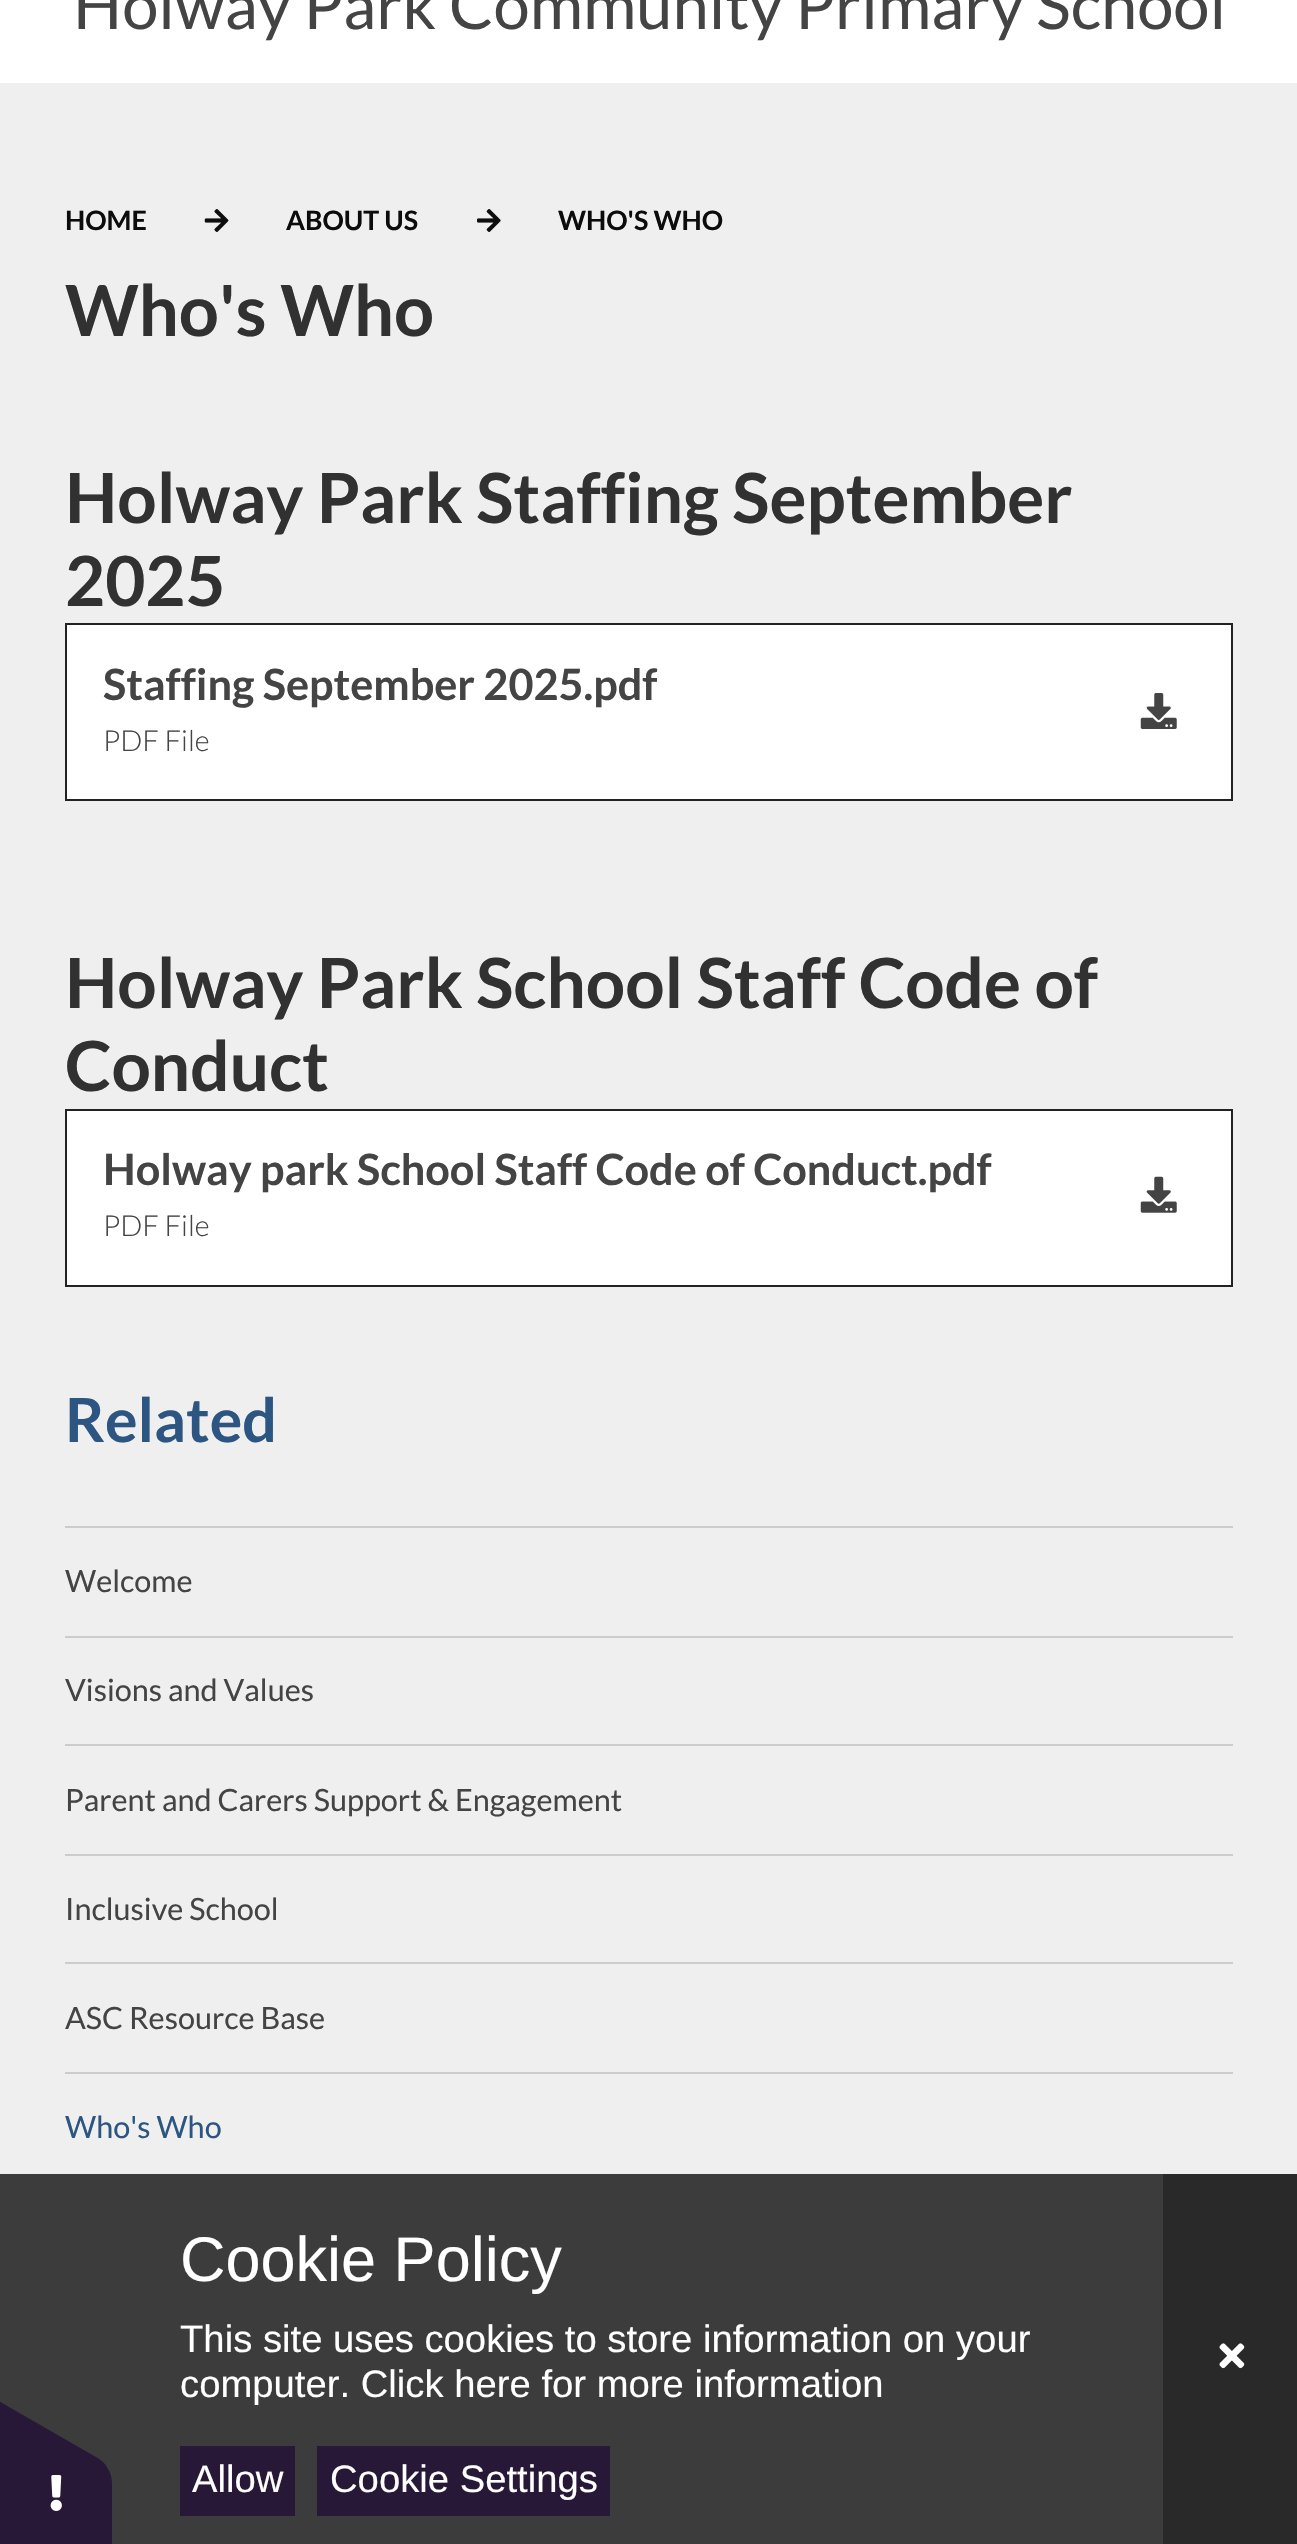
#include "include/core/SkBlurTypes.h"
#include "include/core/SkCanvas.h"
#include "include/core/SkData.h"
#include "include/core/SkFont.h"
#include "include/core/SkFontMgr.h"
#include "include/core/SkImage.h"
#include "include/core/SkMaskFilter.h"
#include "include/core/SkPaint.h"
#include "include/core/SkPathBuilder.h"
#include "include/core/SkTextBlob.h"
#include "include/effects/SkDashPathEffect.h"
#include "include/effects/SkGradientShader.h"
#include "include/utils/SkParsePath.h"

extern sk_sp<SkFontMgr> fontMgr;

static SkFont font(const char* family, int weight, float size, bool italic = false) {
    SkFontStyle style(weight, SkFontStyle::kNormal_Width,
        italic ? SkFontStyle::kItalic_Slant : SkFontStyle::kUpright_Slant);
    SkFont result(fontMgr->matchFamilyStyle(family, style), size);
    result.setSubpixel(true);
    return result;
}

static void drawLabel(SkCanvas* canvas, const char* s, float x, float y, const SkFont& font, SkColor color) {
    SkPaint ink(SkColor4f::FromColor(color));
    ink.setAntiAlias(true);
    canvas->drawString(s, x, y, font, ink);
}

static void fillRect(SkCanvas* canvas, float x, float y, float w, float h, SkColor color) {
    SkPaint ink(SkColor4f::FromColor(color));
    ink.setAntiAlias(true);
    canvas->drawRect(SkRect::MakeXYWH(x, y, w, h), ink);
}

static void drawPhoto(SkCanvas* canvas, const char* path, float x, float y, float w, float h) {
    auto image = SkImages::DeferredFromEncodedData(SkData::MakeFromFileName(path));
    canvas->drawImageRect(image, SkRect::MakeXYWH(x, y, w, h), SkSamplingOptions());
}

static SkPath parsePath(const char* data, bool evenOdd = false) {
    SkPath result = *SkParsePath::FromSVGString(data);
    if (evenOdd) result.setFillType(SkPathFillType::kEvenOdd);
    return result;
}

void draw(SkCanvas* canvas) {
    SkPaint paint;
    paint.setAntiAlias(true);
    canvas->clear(0xFFFFFFFF);
    SkFont font1 = font("Lato", 400, 65);
    drawLabel(canvas, "Holway Park Community Primary School", 73, 29, font1, 0xFF444444);
    fillRect(canvas, 0, 83, 1297, 2091, 0xFFF0EFEF);
    fillRect(canvas, 0, 2174, 1163, 370, 0xFF3C3C3C);
    SkFont font2 = font("Lato", 700, 26.75f);
    drawLabel(canvas, "HOME", 65, 230, font2, 0xFF0C0C0C);
    drawPhoto(canvas, "assets/img1.png", 204, 209, 25, 23);
    drawLabel(canvas, "ABOUT US", 286, 230, font2, 0xFF0C0C0C);
    drawPhoto(canvas, "assets/img2.png", 477, 209, 24, 23);
    drawLabel(canvas, "WHO'S WHO", 558, 230, font2, 0xFF0C0C0C);
    SkFont font3 = font("Lato", 700, 70.5f);
    drawLabel(canvas, "Who's Who", 65, 336, font3, 0xFF313131);
    SkFont font4 = font("Lato", 700, 69.25f);
    drawLabel(canvas, "Holway Park Staffing September", 65, 523, font4, 0xFF313131);
    drawLabel(canvas, "2025", 65, 606, font4, 0xFF313131);
    paint.setColor(0xFFFFFFFF);
    canvas->drawRect(SkRect::MakeXYWH(66, 624, 1166, 176), paint);
    paint.setStroke(true);
    paint.setStrokeWidth(2);
    paint.setColor(0xFF222222);
    canvas->drawRect(SkRect::MakeXYWH(66, 624, 1166, 176), paint);
    SkFont font5 = font("Lato", 700, 43.2f);
    drawLabel(canvas, "Staffing September 2025.pdf", 103, 700, font5, 0xFF444444);
    SkFont font6 = font("Lato", 300, 29);
    drawLabel(canvas, "PDF File", 103, 751, font6, 0xFF444444);
    drawPhoto(canvas, "assets/img3.png", 1140, 693, 37, 36);
    drawLabel(canvas, "Holway Park School Staff Code of", 65, 1008, font4, 0xFF313131);
    drawLabel(canvas, "Conduct", 65, 1091, font4, 0xFF313131);
    paint.setStroke(false);
    paint.setColor(0xFFFFFFFF);
    canvas->drawRect(SkRect::MakeXYWH(66, 1110, 1166, 176), paint);
    paint.setStroke(true);
    paint.setColor(0xFF222222);
    canvas->drawRect(SkRect::MakeXYWH(66, 1110, 1166, 176), paint);
    drawLabel(canvas, "Holway park School Staff Code of Conduct.pdf", 103, 1185, font5, 0xFF444444);
    drawLabel(canvas, "PDF File", 103, 1236, font6, 0xFF444444);
    drawPhoto(canvas, "assets/img4.png", 1140, 1176, 37, 37);
    SkFont font7 = font("Lato", 700, 61);
    drawLabel(canvas, "Related", 65, 1442, font7, 0xFF2C5681);
    fillRect(canvas, 65, 1526, 1168, 2, 0xFFCCCCCC);
    SkFont font8 = font("Lato", 400, 30.6f);
    drawLabel(canvas, "Welcome", 65, 1592, font8, 0xFF444444);
    fillRect(canvas, 65, 1636, 1168, 2, 0xFFCCCCCC);
    drawLabel(canvas, "Visions and Values", 65, 1701, font8, 0xFF444444);
    fillRect(canvas, 65, 1744, 1168, 2, 0xFFCCCCCC);
    drawLabel(canvas, "Parent and Carers Support & Engagement", 65, 1811, font8, 0xFF444444);
    fillRect(canvas, 65, 1854, 1168, 2, 0xFFCCCCCC);
    drawLabel(canvas, "Inclusive School", 65, 1920, font8, 0xFF444444);
    fillRect(canvas, 65, 1962, 1168, 2, 0xFFCCCCCC);
    drawLabel(canvas, "ASC Resource Base", 65, 2029, font8, 0xFF444444);
    fillRect(canvas, 65, 2072, 1168, 2, 0xFFCCCCCC);
    drawLabel(canvas, "Who's Who", 65, 2138, font8, 0xFF2C5681);
    paint.setStroke(false);
    paint.setColor(0xFF281838);
    canvas->drawPath(parsePath("M112 2484V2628C112 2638 108 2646 103 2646H-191C-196 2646-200 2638-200 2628V2484C-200 2474-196 2466-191 2466H103C108 2466 112 2474 112 2484Z"), paint);
    canvas->drawPath(parsePath("M-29 2385L96 2457C105 2462 110 2469 107 2474L-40 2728C-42 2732-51 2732-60 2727L-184 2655C-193 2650-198 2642-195 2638L-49 2384C-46 2379-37 2380-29 2385Z"), paint);
    drawPhoto(canvas, "assets/img5.png", 50, 2475, 12, 36);
    SkFont font9 = font("Liberation Sans", 400, 63);
    drawLabel(canvas, "Cookie Policy", 180, 2281, font9, 0xFFFFFFFF);
    SkFont font10 = font("Liberation Sans", 400, 38.25f);
    drawLabel(canvas, "This site uses cookies to store information on your", 180, 2352, font10, 0xFFFFFFFF);
    drawLabel(canvas, "computer. Click here for more information", 180, 2397, font10, 0xFFFFFFFF);
    fillRect(canvas, 180, 2446, 115, 70, 0xFF281838);
    drawLabel(canvas, "Allow", 192, 2492, font10, 0xFFFFFFFF);
    fillRect(canvas, 317, 2446, 293, 70, 0xFF281838);
    drawLabel(canvas, "Cookie Settings", 330, 2492, font10, 0xFFFFFFFF);
    fillRect(canvas, 1163, 2174, 134, 370, 0xFF292929);
    drawPhoto(canvas, "assets/img6.png", 1219, 2343, 26, 26);
}
